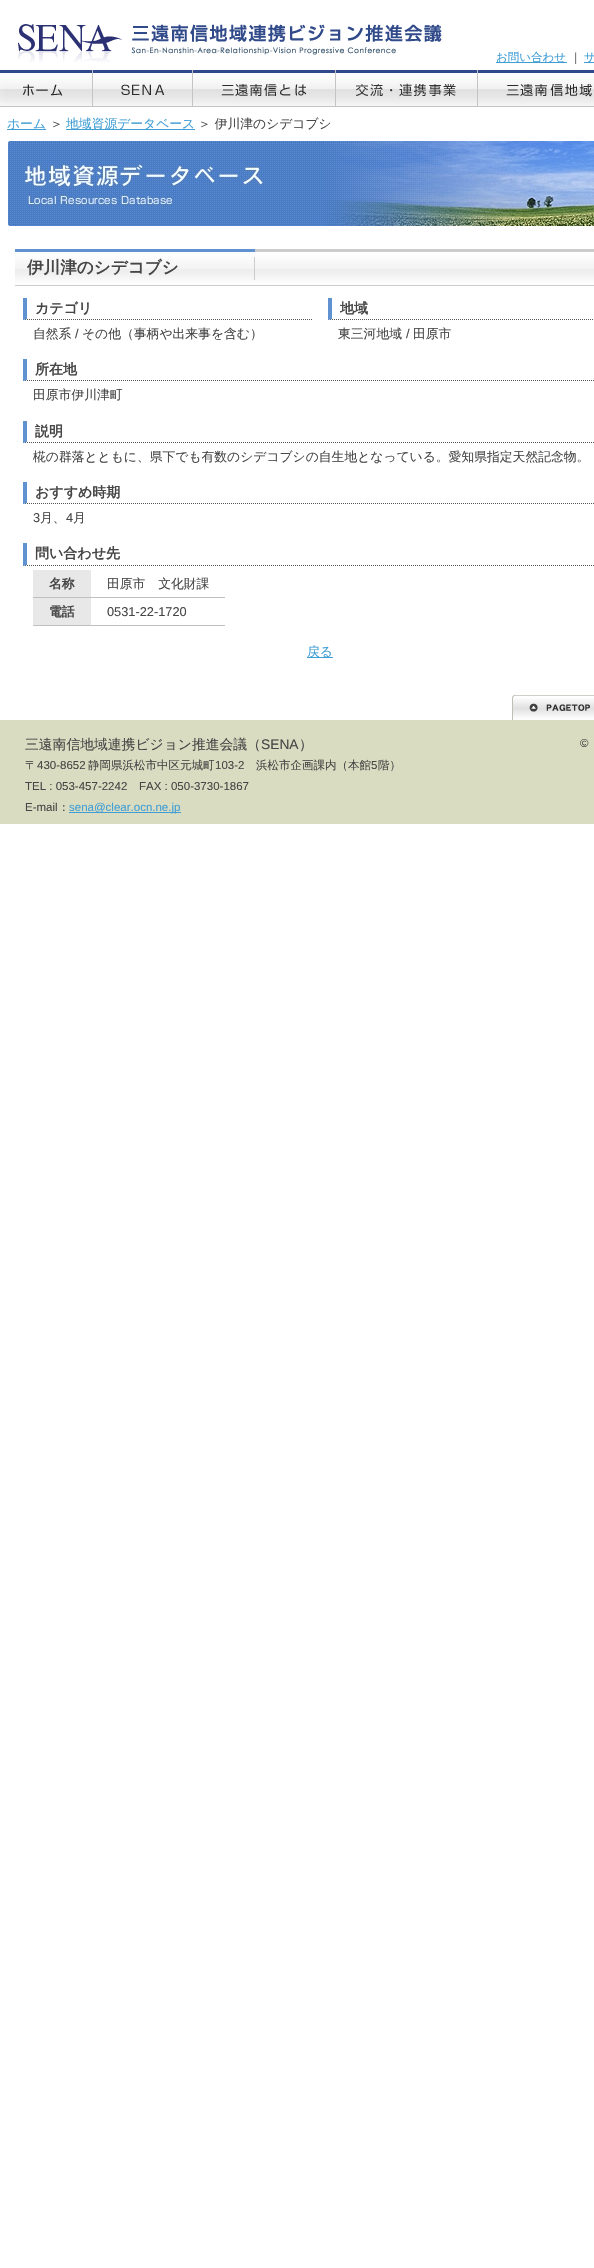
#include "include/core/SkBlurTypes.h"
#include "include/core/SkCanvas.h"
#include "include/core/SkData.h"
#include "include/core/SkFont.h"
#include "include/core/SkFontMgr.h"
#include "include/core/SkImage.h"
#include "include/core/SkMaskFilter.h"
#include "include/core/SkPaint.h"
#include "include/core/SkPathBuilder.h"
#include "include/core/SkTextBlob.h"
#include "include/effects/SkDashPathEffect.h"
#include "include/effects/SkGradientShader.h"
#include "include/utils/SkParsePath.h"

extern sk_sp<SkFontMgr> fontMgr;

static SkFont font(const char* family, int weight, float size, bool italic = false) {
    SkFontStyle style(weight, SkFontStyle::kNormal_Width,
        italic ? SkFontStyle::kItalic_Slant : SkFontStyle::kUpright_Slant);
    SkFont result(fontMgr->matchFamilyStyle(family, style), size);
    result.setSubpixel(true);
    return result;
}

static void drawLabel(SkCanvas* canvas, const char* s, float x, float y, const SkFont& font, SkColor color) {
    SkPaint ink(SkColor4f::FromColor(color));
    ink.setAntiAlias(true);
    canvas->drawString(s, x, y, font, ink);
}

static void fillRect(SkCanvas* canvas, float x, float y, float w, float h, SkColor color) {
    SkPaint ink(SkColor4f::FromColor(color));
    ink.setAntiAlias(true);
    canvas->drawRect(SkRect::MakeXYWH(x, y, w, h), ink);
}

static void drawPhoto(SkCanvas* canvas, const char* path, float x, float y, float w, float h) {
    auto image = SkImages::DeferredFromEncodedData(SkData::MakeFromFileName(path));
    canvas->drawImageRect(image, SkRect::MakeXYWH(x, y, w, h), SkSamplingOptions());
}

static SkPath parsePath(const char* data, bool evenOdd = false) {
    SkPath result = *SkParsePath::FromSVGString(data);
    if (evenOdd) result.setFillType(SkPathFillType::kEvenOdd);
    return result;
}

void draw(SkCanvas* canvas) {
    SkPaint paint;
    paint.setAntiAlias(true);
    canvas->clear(0xFFFFFFFF);
    drawPhoto(canvas, "assets/img1.png", 18, 24, 424, 38);
    fillRect(canvas, 496, 62, 71, 1, 0xFF409ED5);
    SkFont font1 = font("WenQuanYi Zen Hei", 500, 11.5f);
    drawLabel(canvas, "お問い合わせ", 496, 61, font1, 0xFF409ED5);
    drawLabel(canvas, "｜", 570, 61, font1, 0xFF464646);
    fillRect(canvas, 584, 62, 10, 1, 0xFF409ED5);
    drawLabel(canvas, "サ", 584, 61, font1, 0xFF409ED5);
    drawPhoto(canvas, "assets/img2.png", 0, 70, 93, 37);
    drawPhoto(canvas, "assets/img3.png", 93, 70, 100, 37);
    drawPhoto(canvas, "assets/img4.png", 193, 70, 143, 37);
    drawPhoto(canvas, "assets/img5.png", 336, 70, 142, 37);
    drawPhoto(canvas, "assets/img6.png", 478, 70, 116, 37);
    fillRect(canvas, 7, 129, 39, 1, 0xFF409ED5);
    SkFont font2 = font("WenQuanYi Zen Hei", 500, 12.8f);
    drawLabel(canvas, "ホーム", 7, 128, font2, 0xFF409ED5);
    drawLabel(canvas, "＞", 50, 128, font2, 0xFF464646);
    fillRect(canvas, 66, 129, 129, 1, 0xFF409ED5);
    drawLabel(canvas, "地域資源データベース", 66, 128, font2, 0xFF409ED5);
    drawLabel(canvas, "＞ 伊川津のシデコブシ", 198, 128, font2, 0xFF464646);
    drawPhoto(canvas, "assets/img7.png", 8, 141, 586, 85);
    drawPhoto(canvas, "assets/img8.png", 15, 249, 579, 37);
    SkFont font3 = font("WenQuanYi Zen Hei", 700, 16.6f);
    drawLabel(canvas, "伊川津のシデコブシ", 27, 273, font3, 0xFF464646);
    paint.setStroke(true);
    paint.setStrokeWidth(1);
    paint.setColor(0xFF555555);
    paint.setPathEffect(SkDashPathEffect::Make({{1, 1}}, 0));
    canvas->drawPath(parsePath("M23 319.5H313"), paint);
    paint.setPathEffect(nullptr);
    paint.setStroke(false);
    paint.setColor(0xFF6092D2);
    canvas->drawPath(parsePath("M23 320V298H27V319Z"), paint);
    SkFont font4 = font("WenQuanYi Zen Hei", 700, 14);
    drawLabel(canvas, "カテゴリ", 35, 313, font4, 0xFF464646);
    drawLabel(canvas, "自然系", 33, 338, font2, 0xFF464646);
    SkFont font5 = font("Liberation Sans", 400, 12.8f);
    drawLabel(canvas, "/", 75, 338, font5, 0xFF464646);
    drawLabel(canvas, "その他（事柄や出来事を含む）", 82, 338, font2, 0xFF464646);
    paint.setStroke(true);
    paint.setColor(0xFF555555);
    paint.setPathEffect(SkDashPathEffect::Make({{1, 1}}, 0));
    canvas->drawPath(parsePath("M328 319.5H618"), paint);
    paint.setPathEffect(nullptr);
    paint.setStroke(false);
    paint.setColor(0xFF6092D2);
    canvas->drawPath(parsePath("M328 320V298H332V319Z"), paint);
    drawLabel(canvas, "地域", 340, 313, font4, 0xFF464646);
    drawLabel(canvas, "東三河地域", 338, 338, font2, 0xFF464646);
    drawLabel(canvas, "/", 406, 338, font5, 0xFF464646);
    drawLabel(canvas, "田原市", 413, 338, font2, 0xFF464646);
    paint.setStroke(true);
    paint.setColor(0xFF555555);
    paint.setPathEffect(SkDashPathEffect::Make({{1, 1}}, 0));
    canvas->drawPath(parsePath("M23 380.5H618"), paint);
    paint.setPathEffect(nullptr);
    paint.setStroke(false);
    paint.setColor(0xFF6092D2);
    canvas->drawPath(parsePath("M23 381V359H27V380Z"), paint);
    drawLabel(canvas, "所在地", 35, 374, font4, 0xFF464646);
    drawLabel(canvas, "田原市伊川津町", 33, 399, font2, 0xFF464646);
    paint.setStroke(true);
    paint.setColor(0xFF555555);
    paint.setPathEffect(SkDashPathEffect::Make({{1, 1}}, 0));
    canvas->drawPath(parsePath("M23 442.5H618"), paint);
    paint.setPathEffect(nullptr);
    paint.setStroke(false);
    paint.setColor(0xFF6092D2);
    canvas->drawPath(parsePath("M23 443V421H27V442Z"), paint);
    drawLabel(canvas, "説明", 35, 436, font4, 0xFF464646);
    drawLabel(canvas, "椛の群落とともに、県下でも有数のシデコブシの自生地となっている。愛知県指定天然記念物。", 33, 461, font2, 0xFF464646);
    paint.setStroke(true);
    paint.setColor(0xFF555555);
    paint.setPathEffect(SkDashPathEffect::Make({{1, 1}}, 0));
    canvas->drawPath(parsePath("M23 503.5H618"), paint);
    paint.setPathEffect(nullptr);
    paint.setStroke(false);
    paint.setColor(0xFF6092D2);
    canvas->drawPath(parsePath("M23 504V482H27V503Z"), paint);
    drawLabel(canvas, "おすすめ時期", 35, 497, font4, 0xFF464646);
    drawLabel(canvas, "3", 33, 522, font5, 0xFF464646);
    drawLabel(canvas, "月、", 40, 522, font2, 0xFF464646);
    drawLabel(canvas, "4", 66, 522, font5, 0xFF464646);
    drawLabel(canvas, "月", 73, 522, font2, 0xFF464646);
    paint.setStroke(true);
    paint.setColor(0xFF555555);
    paint.setPathEffect(SkDashPathEffect::Make({{1, 1}}, 0));
    canvas->drawPath(parsePath("M23 565.5H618"), paint);
    paint.setPathEffect(nullptr);
    paint.setStroke(false);
    paint.setColor(0xFF6092D2);
    canvas->drawPath(parsePath("M23 566V543H27V565Z"), paint);
    drawLabel(canvas, "問い合わせ先", 35, 558, font4, 0xFF464646);
    fillRect(canvas, 33, 570, 58, 27, 0xFFE8E8E8);
    SkFont font6 = font("WenQuanYi Zen Hei", 700, 12.8f);
    drawLabel(canvas, "名称", 49, 588, font6, 0xFF464646);
    fillRect(canvas, 33, 597, 192, 1, 0xFFC0C0C0);
    drawLabel(canvas, "田原市　文化財課", 107, 588, font2, 0xFF464646);
    fillRect(canvas, 33, 598, 58, 27, 0xFFE8E8E8);
    drawLabel(canvas, "電話", 49, 616, font6, 0xFF464646);
    fillRect(canvas, 33, 625, 192, 1, 0xFFC0C0C0);
    drawLabel(canvas, "0531-22-1720", 107, 616, font5, 0xFF464646);
    fillRect(canvas, 307, 657, 26, 1, 0xFF409ED5);
    drawLabel(canvas, "戻る", 307, 656, font2, 0xFF409ED5);
    fillRect(canvas, 0, 720, 594, 104, 0xFFDADCC1);
    drawPhoto(canvas, "assets/img9.png", 512, 695, 82, 25);
    SkFont font7 = font("WenQuanYi Zen Hei", 500, 13.8f);
    drawLabel(canvas, "三遠南信地域連携ビジョン推進会議（", 25, 749, font7, 0xFF464646);
    SkFont font8 = font("Liberation Sans", 400, 13.8f);
    drawLabel(canvas, "SENA", 261, 749, font8, 0xFF464646);
    drawLabel(canvas, "）", 299, 749, font7, 0xFF464646);
    drawLabel(canvas, "〒", 25, 769, font1, 0xFF464646);
    SkFont font9 = font("Liberation Sans", 400, 11.5f);
    drawLabel(canvas, "430-8652", 37, 769, font9, 0xFF464646);
    drawLabel(canvas, "静岡県浜松市中区元城町", 88, 769, font1, 0xFF464646);
    drawLabel(canvas, "103-2", 215, 769, font9, 0xFF464646);
    drawLabel(canvas, "浜松市企画課内（本館", 256, 769, font1, 0xFF464646);
    drawLabel(canvas, "5", 371, 769, font9, 0xFF464646);
    drawLabel(canvas, "階）", 378, 769, font1, 0xFF464646);
    drawLabel(canvas, "TEL : 053-457-2242", 25, 790, font9, 0xFF464646);
    drawLabel(canvas, "FAX : 050-3730-1867", 139, 790, font9, 0xFF464646);
    drawLabel(canvas, "E-mail", 25, 811, font9, 0xFF464646);
    drawLabel(canvas, "：", 58, 811, font1, 0xFF464646);
    fillRect(canvas, 69, 812, 112, 1, 0xFF409ED5);
    drawLabel(canvas, "sena@clear.ocn.ne.jp", 69, 811, font9, 0xFF409ED5);
    drawLabel(canvas, "©", 580, 747, font9, 0xFF464646);
}
